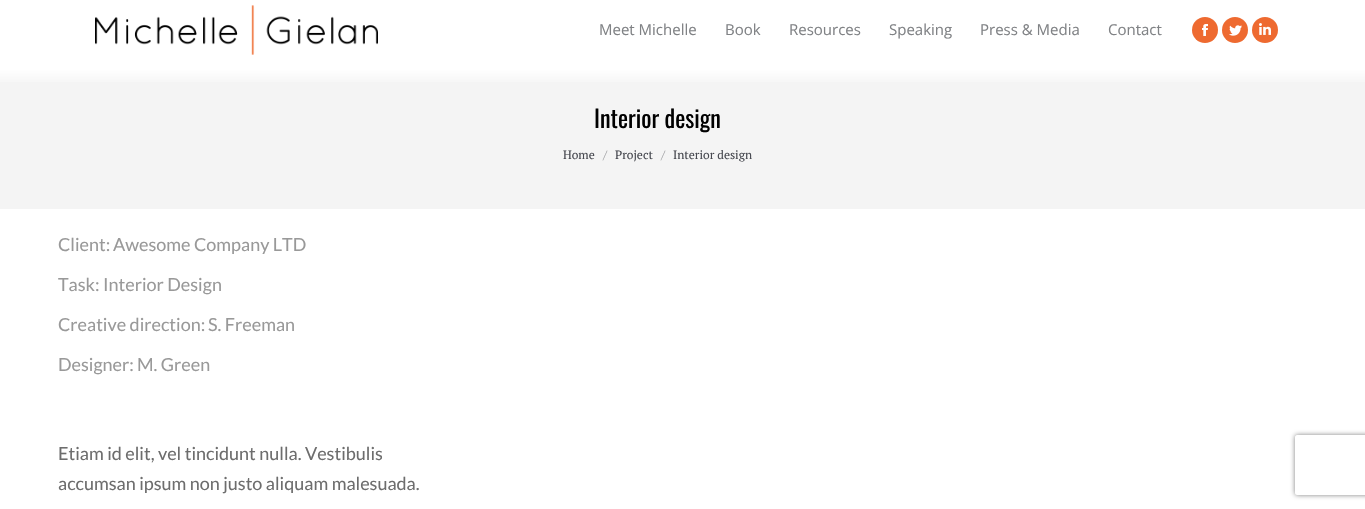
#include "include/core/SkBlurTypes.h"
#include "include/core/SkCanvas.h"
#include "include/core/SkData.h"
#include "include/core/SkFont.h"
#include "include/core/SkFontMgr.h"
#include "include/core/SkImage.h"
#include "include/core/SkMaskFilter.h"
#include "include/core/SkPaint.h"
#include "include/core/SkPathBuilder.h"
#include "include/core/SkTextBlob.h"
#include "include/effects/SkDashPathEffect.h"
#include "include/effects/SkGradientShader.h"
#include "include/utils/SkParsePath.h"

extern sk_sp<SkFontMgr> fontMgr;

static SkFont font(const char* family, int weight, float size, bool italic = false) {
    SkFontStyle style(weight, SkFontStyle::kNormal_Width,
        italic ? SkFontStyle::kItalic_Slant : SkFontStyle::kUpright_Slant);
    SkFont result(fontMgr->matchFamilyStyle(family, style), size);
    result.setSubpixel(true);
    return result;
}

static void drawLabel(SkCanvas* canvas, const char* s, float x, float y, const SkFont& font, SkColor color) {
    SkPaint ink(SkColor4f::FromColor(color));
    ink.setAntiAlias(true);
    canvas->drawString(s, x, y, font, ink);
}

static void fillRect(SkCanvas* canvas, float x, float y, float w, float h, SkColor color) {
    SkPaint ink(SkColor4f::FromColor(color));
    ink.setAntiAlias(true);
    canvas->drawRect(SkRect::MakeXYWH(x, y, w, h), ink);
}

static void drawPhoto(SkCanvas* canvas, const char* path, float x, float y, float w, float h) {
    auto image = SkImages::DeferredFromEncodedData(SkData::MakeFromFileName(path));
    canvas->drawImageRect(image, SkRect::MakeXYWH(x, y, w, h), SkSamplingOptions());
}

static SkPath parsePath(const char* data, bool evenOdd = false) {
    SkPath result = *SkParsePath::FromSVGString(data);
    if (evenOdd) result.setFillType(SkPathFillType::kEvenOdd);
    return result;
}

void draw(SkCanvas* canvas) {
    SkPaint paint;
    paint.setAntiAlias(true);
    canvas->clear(0xFFFFFFFF);
    drawPhoto(canvas, "assets/img1.png", 95, 5, 283, 50);
    SkFont font1 = font("Open Sans", 400, 15);
    drawLabel(canvas, "Meet Michelle", 599, 35, font1, 0xFF808285);
    drawLabel(canvas, "Book", 725, 35, font1, 0xFF808285);
    drawLabel(canvas, "Resources", 789, 35, font1, 0xFF808285);
    drawLabel(canvas, "Speaking", 889, 35, font1, 0xFF808285);
    drawLabel(canvas, "Press & Media", 980, 35, font1, 0xFF808285);
    drawLabel(canvas, "Contact", 1108, 35, font1, 0xFF808285);
    paint.setColor(0xFFEE6A30);
    canvas->drawCircle(1205, 30, 13, paint);
    drawPhoto(canvas, "assets/img2.png", 1202, 24, 6, 12);
    canvas->drawCircle(1235, 30, 13, paint);
    drawPhoto(canvas, "assets/img3.png", 1229, 25, 13, 11);
    canvas->drawCircle(1265, 30, 13, paint);
    drawPhoto(canvas, "assets/img4.png", 1259, 23, 12, 12);
    fillRect(canvas, 0, 68, 1365, 141, 0xFFF4F4F4);
    SkFont font2 = font("Oswald", 400, 24);
    drawLabel(canvas, "Interior design", 594, 128, font2, 0xFF000000);
    SkFont font3 = font("PT Serif", 400, 12);
    drawLabel(canvas, "Home", 563, 159, font3, 0xFF474950);
    drawLabel(canvas, "/", 603, 159, font3, 0xFF9E9FA2);
    drawLabel(canvas, "Project", 615, 159, font3, 0xFF474950);
    drawLabel(canvas, "/", 661, 159, font3, 0xFF9E9FA2);
    drawLabel(canvas, "Interior design", 673, 159, font3, 0xFF474950);
    {
        const SkColor colors[] = {0xFFFFFFFF, 0xFFFFFFFF, 0x3DFFFFFF, 0x00FFFFFF};
        const float stops[] = {0, 0.41f, 0.86f, 1};
        const SkPoint ends[] = {{683, 56}, {683, 86}};
        paint.setShader(SkGradientShader::MakeLinear(ends, colors, stops, 4, SkTileMode::kClamp));
        paint.setAlpha(255);
    }
    canvas->drawRect(SkRect::MakeXYWH(0, 68, 1365, 14), paint);
    SkFont font4 = font("Lato", 400, 18);
    drawLabel(canvas, "Client:", 58, 251, font4, 0xFF999999);
    drawLabel(canvas, "Awesome Company LTD", 113, 251, font4, 0xFF999999);
    drawLabel(canvas, "Task:", 58, 291, font4, 0xFF999999);
    drawLabel(canvas, "Interior Design", 103, 291, font4, 0xFF999999);
    drawLabel(canvas, "Creative direction:", 58, 331, font4, 0xFF999999);
    drawLabel(canvas, "S. Freeman", 208, 331, font4, 0xFF999999);
    drawLabel(canvas, "Designer:", 58, 371, font4, 0xFF999999);
    drawLabel(canvas, "M. Green", 137, 371, font4, 0xFF999999);
    drawLabel(canvas, "Etiam id elit, vel tincidunt nulla. Vestibulis", 58, 460, font4, 0xFF6D6D6D);
    drawLabel(canvas, "accumsan ipsum non justo aliquam malesuada.", 58, 490, font4, 0xFF6D6D6D);
    canvas->save();
    canvas->clipPath(parsePath("M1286 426H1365V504H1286ZM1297 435H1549C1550 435 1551 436 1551 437V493C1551 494 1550 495 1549 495H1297C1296 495 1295 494 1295 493V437C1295 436 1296 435 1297 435Z", true), true);
    paint.setShader(nullptr);
    paint.setColor(0xFF808080);
    paint.setMaskFilter(SkMaskFilter::MakeBlur(kNormal_SkBlurStyle, 2.5f));
    canvas->drawRoundRect(SkRect::MakeXYWH(1295, 435, 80, 60), 2, 2, paint);
    paint.setMaskFilter(nullptr);
    canvas->restore();
}
